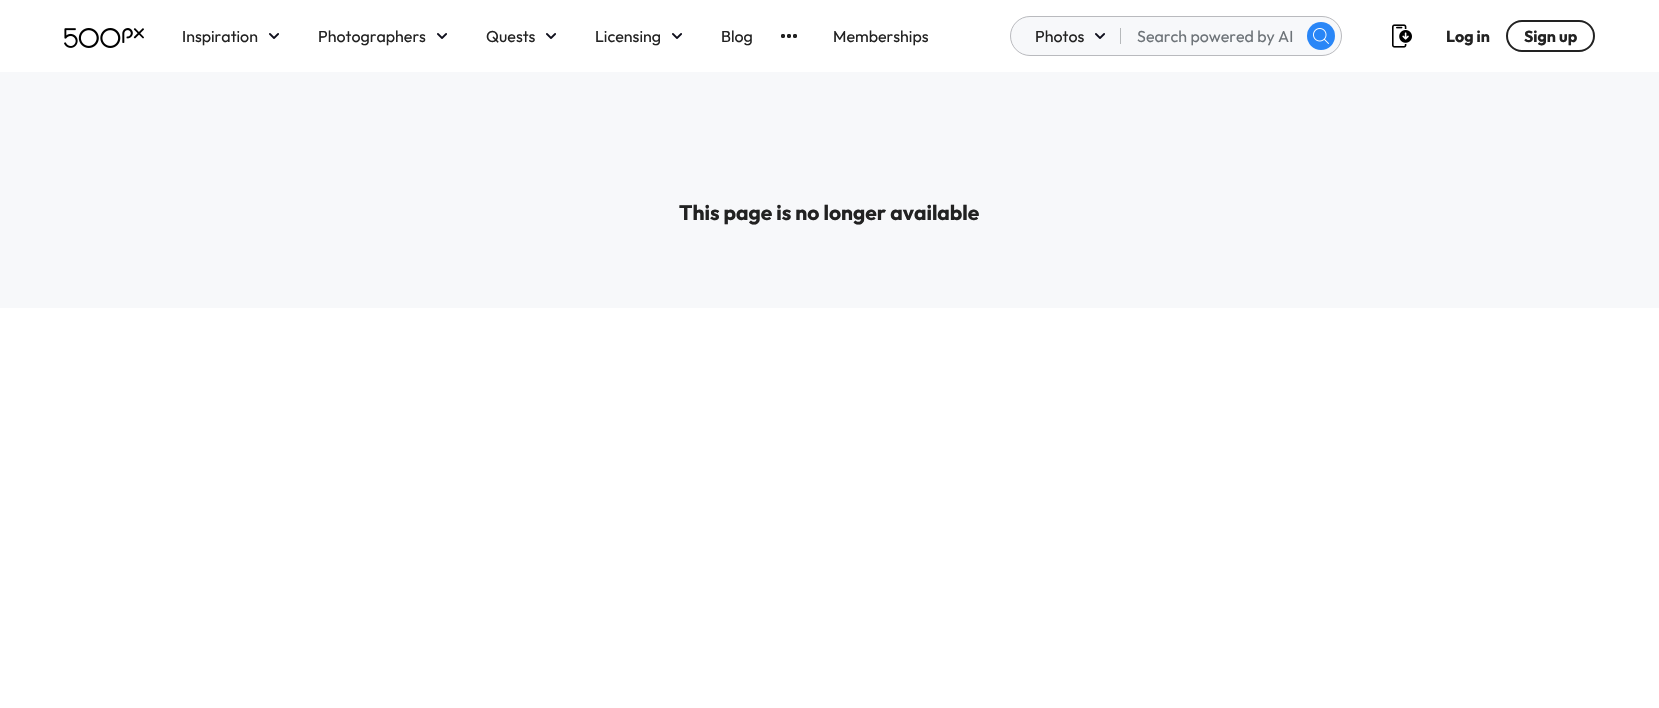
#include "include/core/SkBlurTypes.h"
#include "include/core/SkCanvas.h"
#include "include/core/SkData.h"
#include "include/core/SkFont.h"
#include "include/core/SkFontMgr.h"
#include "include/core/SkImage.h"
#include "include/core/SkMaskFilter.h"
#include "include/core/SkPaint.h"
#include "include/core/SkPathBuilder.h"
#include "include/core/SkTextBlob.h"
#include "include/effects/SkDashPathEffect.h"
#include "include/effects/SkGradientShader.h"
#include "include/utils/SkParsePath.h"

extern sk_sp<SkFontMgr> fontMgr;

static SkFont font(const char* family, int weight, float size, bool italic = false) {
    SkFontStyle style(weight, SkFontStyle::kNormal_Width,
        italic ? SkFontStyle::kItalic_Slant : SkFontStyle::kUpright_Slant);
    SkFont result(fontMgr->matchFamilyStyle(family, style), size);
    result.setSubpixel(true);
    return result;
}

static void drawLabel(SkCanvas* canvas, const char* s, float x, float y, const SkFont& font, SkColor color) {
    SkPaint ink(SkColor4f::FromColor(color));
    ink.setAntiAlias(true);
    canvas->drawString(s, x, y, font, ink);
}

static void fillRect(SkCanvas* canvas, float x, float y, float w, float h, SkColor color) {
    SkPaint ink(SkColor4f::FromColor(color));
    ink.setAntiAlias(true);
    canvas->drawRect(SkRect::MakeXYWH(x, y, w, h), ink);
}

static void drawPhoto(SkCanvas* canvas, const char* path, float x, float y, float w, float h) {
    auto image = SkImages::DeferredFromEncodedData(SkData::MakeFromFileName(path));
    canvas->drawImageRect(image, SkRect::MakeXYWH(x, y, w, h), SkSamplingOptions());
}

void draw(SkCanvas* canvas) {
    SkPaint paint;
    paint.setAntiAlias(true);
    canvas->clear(0xFFFFFFFF);
    drawPhoto(canvas, "assets/img1.png", 64, 28, 80, 20);
    SkFont font1 = font("Outfit", 400, 16);
    drawLabel(canvas, "Inspiration", 182, 42, font1, 0xFF222222);
    drawPhoto(canvas, "assets/img2.png", 269, 33, 10, 6);
    drawLabel(canvas, "Photographers", 318, 42, font1, 0xFF222222);
    drawPhoto(canvas, "assets/img2.png", 437, 33, 10, 6);
    drawLabel(canvas, "Quests", 486, 42, font1, 0xFF222222);
    drawPhoto(canvas, "assets/img2.png", 546, 33, 10, 6);
    drawLabel(canvas, "Licensing", 595, 42, font1, 0xFF222222);
    drawPhoto(canvas, "assets/img2.png", 672, 33, 10, 6);
    drawLabel(canvas, "Blog", 721, 42, font1, 0xFF222222);
    drawPhoto(canvas, "assets/img3.png", 781, 34, 16, 4);
    drawLabel(canvas, "Memberships", 833, 42, font1, 0xFF222222);
    paint.setColor(0xFFF7F8FA);
    canvas->drawRoundRect(SkRect::MakeXYWH(1010.5f, 16.5f, 331, 39), 19.5f, 19.5f, paint);
    paint.setStroke(true);
    paint.setStrokeWidth(1);
    paint.setColor(0xFFB9BABE);
    canvas->drawRoundRect(SkRect::MakeXYWH(1010.5f, 16.5f, 331, 39), 19.5f, 19.5f, paint);
    drawLabel(canvas, "Photos", 1035, 42, font1, 0xFF222222);
    drawPhoto(canvas, "assets/img4.png", 1095, 33, 10, 6);
    fillRect(canvas, 1120, 28, 1, 16, 0xFFB6B9BB);
    drawLabel(canvas, "Search powered by AI", 1137, 42, font1, 0xFF6D7378);
    paint.setStroke(false);
    paint.setColor(0xFF2986F7);
    canvas->drawCircle(1321, 36, 14, paint);
    drawPhoto(canvas, "assets/img5.png", 1313, 28, 16, 16);
    drawPhoto(canvas, "assets/img6.png", 1392, 24, 20, 24);
    SkFont font2 = font("Outfit", 700, 16);
    drawLabel(canvas, "Log in", 1446, 42, font2, 0xFF222222);
    paint.setStroke(true);
    paint.setStrokeWidth(2);
    paint.setColor(0xFF222222);
    canvas->drawRoundRect(SkRect::MakeXYWH(1507, 21, 87, 30), 15, 15, paint);
    drawLabel(canvas, "Sign up", 1524, 42, font2, 0xFF222222);
    fillRect(canvas, 0, 72, 1659, 236, 0xFFF7F8FA);
    SkFont font3 = font("Outfit", 700, 21);
    drawLabel(canvas, "This page is no longer available", 679, 220, font3, 0xFF222222);
}
